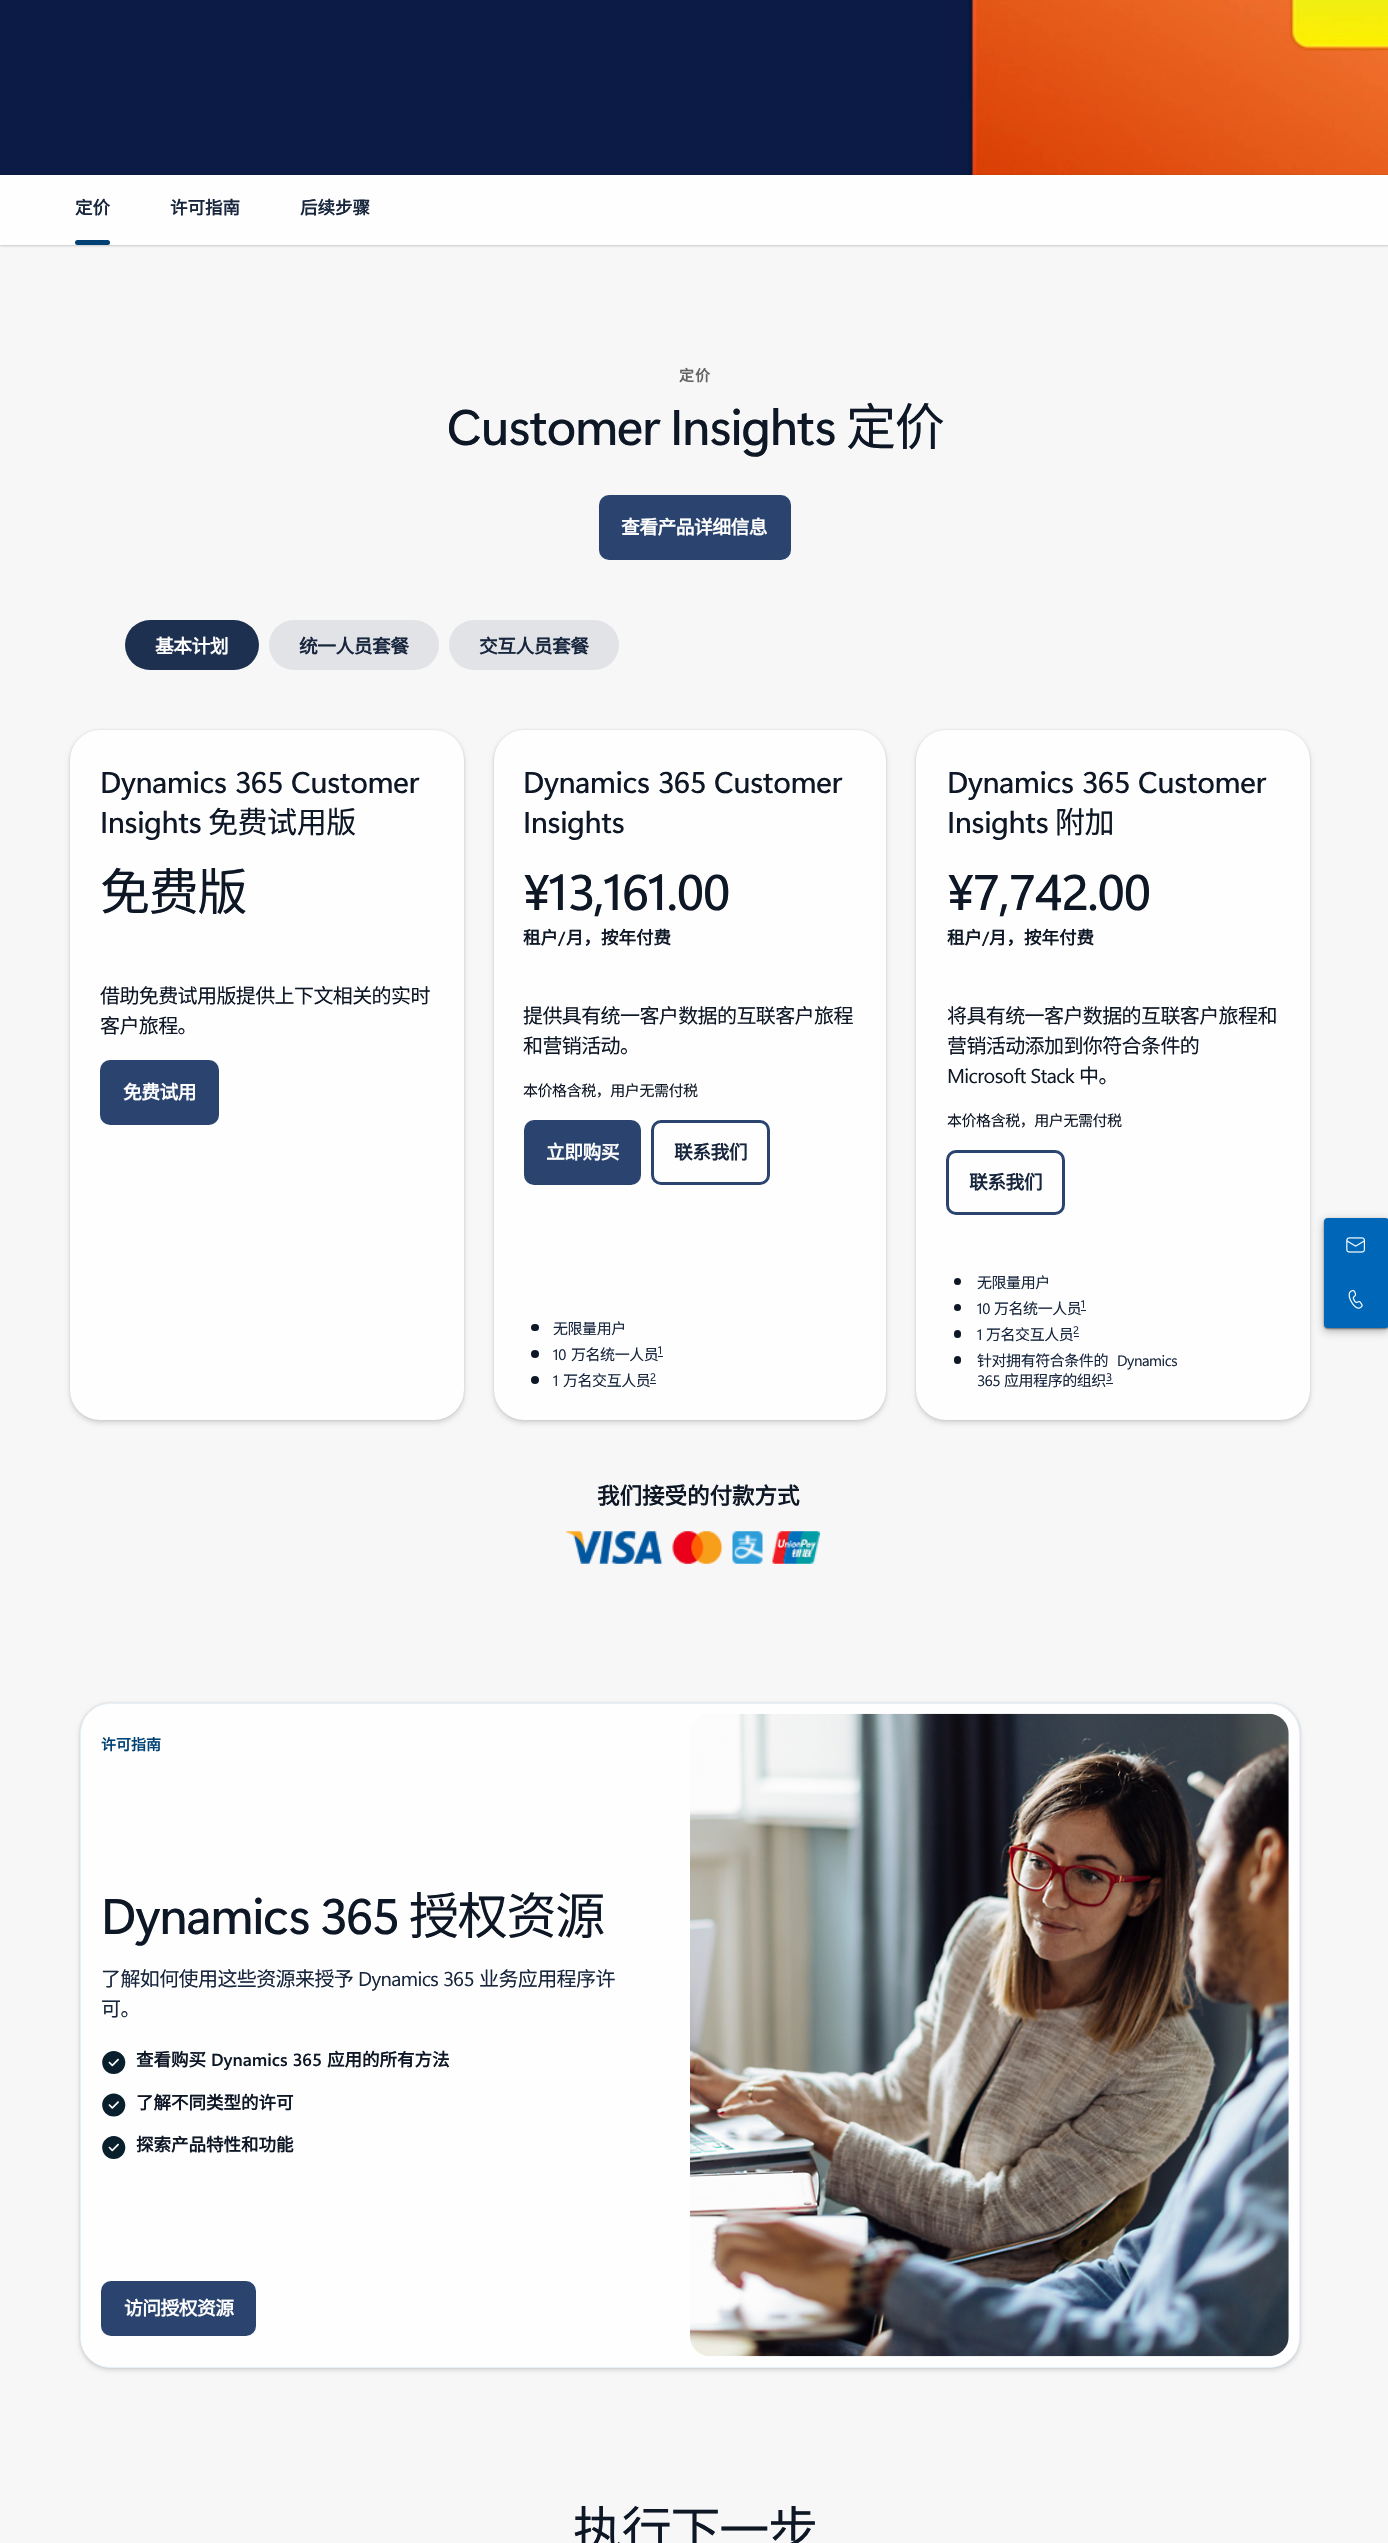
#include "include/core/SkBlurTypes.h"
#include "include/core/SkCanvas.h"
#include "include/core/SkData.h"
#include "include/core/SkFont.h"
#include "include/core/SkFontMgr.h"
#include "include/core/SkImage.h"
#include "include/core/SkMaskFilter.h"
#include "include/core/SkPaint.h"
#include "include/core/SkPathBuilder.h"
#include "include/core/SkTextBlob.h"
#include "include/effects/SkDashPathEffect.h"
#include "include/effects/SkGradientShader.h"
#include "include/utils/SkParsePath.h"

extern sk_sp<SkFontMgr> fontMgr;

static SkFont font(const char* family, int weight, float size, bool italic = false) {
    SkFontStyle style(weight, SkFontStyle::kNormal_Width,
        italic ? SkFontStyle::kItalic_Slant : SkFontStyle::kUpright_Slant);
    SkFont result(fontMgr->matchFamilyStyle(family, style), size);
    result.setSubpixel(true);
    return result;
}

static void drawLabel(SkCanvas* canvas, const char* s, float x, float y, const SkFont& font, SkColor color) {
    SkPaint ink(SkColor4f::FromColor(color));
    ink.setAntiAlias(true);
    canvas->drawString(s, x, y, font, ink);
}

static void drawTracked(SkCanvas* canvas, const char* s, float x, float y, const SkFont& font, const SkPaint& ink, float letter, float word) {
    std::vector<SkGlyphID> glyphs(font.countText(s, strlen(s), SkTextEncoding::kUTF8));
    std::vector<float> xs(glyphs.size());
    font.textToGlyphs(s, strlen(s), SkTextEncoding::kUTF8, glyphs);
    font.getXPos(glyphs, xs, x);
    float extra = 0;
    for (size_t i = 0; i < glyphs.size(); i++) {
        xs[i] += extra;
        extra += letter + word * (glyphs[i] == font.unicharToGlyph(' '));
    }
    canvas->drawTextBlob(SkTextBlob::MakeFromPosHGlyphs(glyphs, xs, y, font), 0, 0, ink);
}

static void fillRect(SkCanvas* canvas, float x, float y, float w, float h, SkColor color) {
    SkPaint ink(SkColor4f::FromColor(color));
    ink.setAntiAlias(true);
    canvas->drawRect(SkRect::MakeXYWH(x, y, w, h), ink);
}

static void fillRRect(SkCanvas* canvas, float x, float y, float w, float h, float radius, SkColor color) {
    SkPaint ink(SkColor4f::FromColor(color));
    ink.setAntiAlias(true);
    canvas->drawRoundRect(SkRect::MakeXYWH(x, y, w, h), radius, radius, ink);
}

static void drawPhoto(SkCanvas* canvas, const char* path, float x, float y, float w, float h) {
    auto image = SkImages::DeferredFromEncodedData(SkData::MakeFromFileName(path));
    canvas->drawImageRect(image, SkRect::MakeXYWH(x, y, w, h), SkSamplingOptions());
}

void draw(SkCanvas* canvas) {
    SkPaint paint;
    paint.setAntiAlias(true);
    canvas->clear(0xFFF7F7F7);
    drawPhoto(canvas, "assets/img1.png", 0, 0, 1388, 175);
    paint.setColor(0x24000000);
    paint.setMaskFilter(SkMaskFilter::MakeBlur(kNormal_SkBlurStyle, 1));
    canvas->drawRect(SkRect::MakeXYWH(0, 176, 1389, 70), paint);
    paint.setMaskFilter(nullptr);
    paint.setColor(0x1F000000);
    paint.setMaskFilter(SkMaskFilter::MakeBlur(kNormal_SkBlurStyle, 1));
    canvas->drawRect(SkRect::MakeXYWH(0, 175, 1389, 70), paint);
    paint.setMaskFilter(nullptr);
    fillRect(canvas, 0, 175, 1388, 70, 0xFFFEFEFE);
    SkFont font1 = font("Noto Sans CJK SC", 700, 17.5f);
    drawLabel(canvas, "定价", 75, 214, font1, 0xFF17253D);
    fillRRect(canvas, 75, 240, 35, 5, 2.5f, 0xFF004275);
    drawLabel(canvas, "许可指南", 170, 214, font1, 0xFF17253D);
    drawLabel(canvas, "后续步骤", 300, 214, font1, 0xFF17253D);
    SkFont font2 = font("Noto Sans CJK SC", 700, 15);
    paint.setColor(0xFF616262);
    drawTracked(canvas, "定价", 679, 381, font2, paint, 1, 0);
    SkFont font3 = font("Segoe UI", 500, 50);
    paint.setColor(0xFF0E1726);
    drawTracked(canvas, "Customer Insights", 447, 445, font3, paint, -1.25f, 0);
    SkFont font4 = font("Noto Sans CJK SC", 400, 50);
    drawTracked(canvas, "定价", 846, 445, font4, paint, -1.25f, 0);
    fillRRect(canvas, 599, 495, 192, 65, 10, 0xFF2A446F);
    SkFont font5 = font("Noto Sans CJK SC", 700, 18.75f);
    paint.setColor(0xFFFFFFFF);
    drawTracked(canvas, "查看产品详细信息", 621, 534, font5, paint, -0.5f, 0);
    fillRRect(canvas, 125, 620, 134, 50, 25, 0xFF1E304F);
    drawTracked(canvas, "基本计划", 155, 653, font5, paint, -0.5f, 0);
    fillRRect(canvas, 269, 620, 170, 50, 25, 0xFFE1E3E6);
    paint.setColor(0xFF17253D);
    drawTracked(canvas, "统一人员套餐", 299, 653, font5, paint, -0.5f, 0);
    fillRRect(canvas, 449, 620, 170, 50, 25, 0xFFE1E3E6);
    drawTracked(canvas, "交互人员套餐", 479, 653, font5, paint, -0.5f, 0);
    paint.setColor(0x24000000);
    paint.setMaskFilter(SkMaskFilter::MakeBlur(kNormal_SkBlurStyle, 2.5f));
    canvas->drawRoundRect(SkRect::MakeXYWH(70, 733, 394, 690), 30, 30, paint);
    paint.setMaskFilter(nullptr);
    paint.setColor(0x1F000000);
    paint.setMaskFilter(SkMaskFilter::MakeBlur(kNormal_SkBlurStyle, 1));
    canvas->drawRoundRect(SkRect::MakeXYWH(70, 730, 394, 690), 30, 30, paint);
    paint.setMaskFilter(nullptr);
    fillRRect(canvas, 70, 730, 394, 690, 30, 0xFFFEFEFE);
    SkFont font6 = font("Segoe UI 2", 500, 30);
    paint.setColor(0xFF0E1726);
    drawTracked(canvas, "Dynamics 365 Customer", 100, 793, font6, paint, -0.45f, 1);
    drawTracked(canvas, "Insights", 100, 833, font6, paint, -0.45f, 0);
    SkFont font7 = font("Noto Sans CJK SC", 400, 30);
    drawTracked(canvas, "免费试用版", 208, 833, font7, paint, -0.45f, 0);
    drawTracked(canvas, "免费版", 100, 910, font4, paint, -1.25f, 0);
    SkFont font8 = font("Noto Sans CJK SC", 400, 20);
    drawTracked(canvas, "借助免费试用版提供上下文相关的实时", 100, 1003, font8, paint, -0.6f, 0);
    drawTracked(canvas, "客户旅程。", 100, 1033, font8, paint, -0.6f, 0);
    fillRRect(canvas, 100, 1060, 119, 65, 10, 0xFF2A446F);
    paint.setColor(0xFFFFFFFF);
    drawTracked(canvas, "免费试用", 123, 1099, font5, paint, -0.5f, 0);
    paint.setColor(0x24000000);
    paint.setMaskFilter(SkMaskFilter::MakeBlur(kNormal_SkBlurStyle, 2.5f));
    canvas->drawRoundRect(SkRect::MakeXYWH(494, 733, 392, 690), 30, 30, paint);
    paint.setMaskFilter(nullptr);
    paint.setColor(0x1F000000);
    paint.setMaskFilter(SkMaskFilter::MakeBlur(kNormal_SkBlurStyle, 1));
    canvas->drawRoundRect(SkRect::MakeXYWH(494, 730, 392, 690), 30, 30, paint);
    paint.setMaskFilter(nullptr);
    fillRRect(canvas, 494, 730, 392, 690, 30, 0xFFFEFEFE);
    paint.setColor(0xFF0E1726);
    drawTracked(canvas, "Dynamics 365 Customer", 523, 793, font6, paint, -0.45f, 1);
    drawTracked(canvas, "Insights", 523, 833, font6, paint, -0.45f, 0);
    SkFont font9 = font("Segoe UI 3", 500, 50);
    drawTracked(canvas, "¥13,161.00", 523, 910, font9, paint, -1.25f, 0);
    drawLabel(canvas, "租户", 523, 944, font1, 0xFF0E1726);
    SkFont font10 = font("Segoe UI", 600, 17.5f);
    drawLabel(canvas, "/", 558, 944, font10, 0xFF0E1726);
    drawLabel(canvas, "月，按年付费", 566, 944, font1, 0xFF0E1726);
    drawTracked(canvas, "提供具有统一客户数据的互联客户旅程", 523, 1023, font8, paint, -0.6f, 0);
    drawTracked(canvas, "和营销活动。", 523, 1053, font8, paint, -0.6f, 0);
    SkFont font11 = font("Noto Sans CJK SC", 400, 15);
    drawTracked(canvas, "本价格含税，用户无需付税", 523, 1096, font11, paint, -0.45f, 0);
    fillRRect(canvas, 524, 1120, 117, 65, 10, 0xFF2A446F);
    paint.setColor(0xFFFFFFFF);
    drawTracked(canvas, "立即购买", 546, 1159, font5, paint, -0.5f, 0);
    paint.setStroke(true);
    paint.setStrokeWidth(3);
    paint.setColor(0xFF2A446F);
    canvas->drawRoundRect(SkRect::MakeXYWH(652.5f, 1121.5f, 116, 62), 8.5f, 8.5f, paint);
    paint.setStroke(false);
    paint.setColor(0xFF17253D);
    drawTracked(canvas, "联系我们", 674, 1159, font5, paint, -0.5f, 0);
    fillRRect(canvas, 531, 1324, 8, 7, 3.5f, 0xFF0E1726);
    drawTracked(canvas, "无限量用户", 553, 1334, font11, paint, -0.45f, 0);
    paint.setColor(0xFF0E1726);
    canvas->drawCircle(535, 1354, 4, paint);
    SkFont font12 = font("Segoe UI", 400, 15);
    paint.setColor(0xFF17253D);
    drawTracked(canvas, "10", 553, 1360, font12, paint, -0.45f, 0);
    drawTracked(canvas, "万名统一人员", 571, 1360, font11, paint, -0.45f, 0);
    SkFont font13 = font("Segoe UI 2", 400, 11);
    drawTracked(canvas, "1", 658, 1354, font13, paint, -0.45f, 0);
    fillRect(canvas, 658, 1356, 5, 1, 0xFF17253D);
    paint.setColor(0xFF0E1726);
    canvas->drawCircle(535, 1380, 4, paint);
    paint.setColor(0xFF17253D);
    drawTracked(canvas, "1", 553, 1386, font12, paint, -0.45f, 0);
    drawTracked(canvas, "万名交互人员", 563, 1386, font11, paint, -0.45f, 0);
    drawTracked(canvas, "2", 650, 1381, font13, paint, -0.45f, 0);
    fillRect(canvas, 650, 1383, 6, 1, 0xFF17253D);
    paint.setColor(0x24000000);
    paint.setMaskFilter(SkMaskFilter::MakeBlur(kNormal_SkBlurStyle, 2.5f));
    canvas->drawRoundRect(SkRect::MakeXYWH(916, 733, 394, 690), 30, 30, paint);
    paint.setMaskFilter(nullptr);
    paint.setColor(0x1F000000);
    paint.setMaskFilter(SkMaskFilter::MakeBlur(kNormal_SkBlurStyle, 1));
    canvas->drawRoundRect(SkRect::MakeXYWH(916, 730, 394, 690), 30, 30, paint);
    paint.setMaskFilter(nullptr);
    fillRRect(canvas, 916, 730, 394, 690, 30, 0xFFFEFEFE);
    paint.setColor(0xFF0E1726);
    drawTracked(canvas, "Dynamics 365 Customer", 947, 793, font6, paint, -0.45f, 1);
    drawTracked(canvas, "Insights", 947, 833, font6, paint, -0.45f, 0);
    drawTracked(canvas, "附加", 1055, 833, font7, paint, -0.45f, 0);
    drawTracked(canvas, "¥7,742.00", 947, 910, font9, paint, -1.25f, 0);
    drawLabel(canvas, "租户", 947, 944, font1, 0xFF0E1726);
    drawLabel(canvas, "/", 982, 944, font10, 0xFF0E1726);
    drawLabel(canvas, "月，按年付费", 989, 944, font1, 0xFF0E1726);
    drawTracked(canvas, "将具有统一客户数据的互联客户旅程和", 947, 1023, font8, paint, -0.6f, 0);
    drawTracked(canvas, "营销活动添加到你符合条件的", 947, 1053, font8, paint, -0.6f, 0);
    SkFont font14 = font("Segoe UI", 400, 20);
    drawTracked(canvas, "Microsoft Stack", 947, 1083, font14, paint, -0.6f, 0);
    drawTracked(canvas, "中。", 1079, 1083, font8, paint, -0.6f, 0);
    drawTracked(canvas, "本价格含税，用户无需付税", 947, 1126, font11, paint, -0.45f, 0);
    paint.setStroke(true);
    paint.setColor(0xFF2A446F);
    canvas->drawRoundRect(SkRect::MakeXYWH(947.5f, 1151.5f, 116, 62), 8.5f, 8.5f, paint);
    paint.setStroke(false);
    paint.setColor(0xFF17253D);
    drawTracked(canvas, "联系我们", 969, 1189, font5, paint, -0.5f, 0);
    paint.setColor(0xFF0E1726);
    canvas->drawCircle(957.5f, 1281.5f, 3.5f, paint);
    paint.setColor(0xFF17253D);
    drawTracked(canvas, "无限量用户", 977, 1288, font11, paint, -0.45f, 0);
    paint.setColor(0xFF0E1726);
    canvas->drawCircle(957.5f, 1307.5f, 3.5f, paint);
    paint.setColor(0xFF17253D);
    drawTracked(canvas, "10", 977, 1314, font12, paint, -0.45f, 0);
    drawTracked(canvas, "万名统一人员", 994, 1314, font11, paint, -0.45f, 0);
    drawTracked(canvas, "1", 1081, 1308, font13, paint, -0.45f, 0);
    fillRect(canvas, 1081, 1310, 5, 1, 0xFF17253D);
    fillRRect(canvas, 954, 1330, 7, 8, 3.5f, 0xFF0E1726);
    drawTracked(canvas, "1", 977, 1340, font12, paint, -0.45f, 0);
    drawTracked(canvas, "万名交互人员", 986, 1340, font11, paint, -0.45f, 0);
    drawTracked(canvas, "2", 1073, 1334, font13, paint, -0.45f, 0);
    fillRect(canvas, 1074, 1336, 5, 1, 0xFF17253D);
    fillRRect(canvas, 954, 1356, 7, 8, 3.5f, 0xFF0E1726);
    drawTracked(canvas, "针对拥有符合条件的", 977, 1366, font11, paint, -0.45f, 0);
    drawTracked(canvas, "Dynamics", 1117, 1366, font12, paint, -0.45f, 0);
    drawTracked(canvas, "365", 977, 1386, font12, paint, -0.45f, 0);
    drawTracked(canvas, "应用程序的组织", 1004, 1386, font11, paint, -0.45f, 0);
    drawTracked(canvas, "3", 1106, 1381, font13, paint, -0.45f, 0);
    fillRect(canvas, 1106, 1383, 7, 1, 0xFF17253D);
    SkFont font15 = font("Noto Sans CJK SC", 700, 22.5f);
    drawLabel(canvas, "我们接受的付款方式", 597, 1504, font15, 0xFF0E1726);
    drawPhoto(canvas, "assets/img2.png", 565, 1531, 98, 33);
    drawPhoto(canvas, "assets/img3.png", 672, 1531, 51, 33);
    drawPhoto(canvas, "assets/img4.png", 732, 1531, 31, 33);
    drawPhoto(canvas, "assets/img5.png", 772, 1531, 48, 33);
    paint.setColor(0x24000000);
    paint.setMaskFilter(SkMaskFilter::MakeBlur(kNormal_SkBlurStyle, 2.5f));
    canvas->drawRoundRect(SkRect::MakeXYWH(80, 1705, 1220, 665), 30, 30, paint);
    paint.setMaskFilter(nullptr);
    paint.setColor(0x1F000000);
    paint.setMaskFilter(SkMaskFilter::MakeBlur(kNormal_SkBlurStyle, 1));
    canvas->drawRoundRect(SkRect::MakeXYWH(80, 1703, 1220, 665), 30, 30, paint);
    paint.setMaskFilter(nullptr);
    paint.setColor(0xFFFEFEFE);
    canvas->drawRoundRect(SkRect::MakeXYWH(80.5f, 1703.5f, 1219, 664), 29.5f, 29.5f, paint);
    paint.setStroke(true);
    paint.setStrokeWidth(1);
    paint.setColor(0xFFE6F2FB);
    canvas->drawRoundRect(SkRect::MakeXYWH(80.5f, 1703.5f, 1219, 664), 29.5f, 29.5f, paint);
    drawLabel(canvas, "许可指南", 101, 1750, font2, 0xFF004275);
    paint.setStroke(false);
    paint.setColor(0xFF0E1726);
    drawTracked(canvas, "Dynamics 365", 101, 1934, font3, paint, -1.25f, 0);
    drawTracked(canvas, "授权资源", 409, 1934, font4, paint, -1.25f, 0);
    paint.setColor(0xFF17253D);
    drawTracked(canvas, "了解如何使用这些资源来授予", 101, 1986, font8, paint, -0.6f, 0);
    drawTracked(canvas, "Dynamics 365", 358, 1986, font14, paint, -0.6f, 0);
    drawTracked(canvas, "业务应用程序许", 479, 1986, font8, paint, -0.6f, 0);
    drawTracked(canvas, "可。", 101, 2016, font8, paint, -0.6f, 0);
    drawPhoto(canvas, "assets/img6.png", 102, 2051, 24, 23);
    drawLabel(canvas, "查看购买", 136, 2066, font1, 0xFF0E1726);
    drawLabel(canvas, "Dynamics 365", 211, 2066, font10, 0xFF0E1726);
    drawLabel(canvas, "应用的所有方法", 327, 2066, font1, 0xFF0E1726);
    drawPhoto(canvas, "assets/img7.png", 102, 2093, 24, 24);
    drawLabel(canvas, "了解不同类型的许可", 136, 2109, font1, 0xFF0E1726);
    drawPhoto(canvas, "assets/img6.png", 102, 2136, 24, 23);
    drawLabel(canvas, "探索产品特性和功能", 136, 2151, font1, 0xFF0E1726);
    fillRRect(canvas, 101, 2281, 155, 55, 10, 0xFF2A446F);
    paint.setColor(0xFFFFFFFF);
    drawTracked(canvas, "访问授权资源", 124, 2315, font5, paint, -0.5f, 0);
    drawPhoto(canvas, "assets/img8.png", 690, 1713, 599, 644);
    paint.setColor(0xFF0E1726);
    drawTracked(canvas, "执行下一步", 573, 2548, font4, paint, -1.25f, 0);
    paint.setColor(0x4D000000);
    paint.setMaskFilter(SkMaskFilter::MakeBlur(kNormal_SkBlurStyle, 4.5f));
    canvas->drawRoundRect(SkRect::MakeXYWH(1324, 1221, 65, 110), 4, 4, paint);
    paint.setMaskFilter(nullptr);
    paint.setColor(0x73000000);
    paint.setMaskFilter(SkMaskFilter::MakeBlur(kNormal_SkBlurStyle, 1));
    canvas->drawRoundRect(SkRect::MakeXYWH(1324, 1219, 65, 110), 4, 4, paint);
    paint.setMaskFilter(nullptr);
    fillRRect(canvas, 1324, 1218, 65, 110, 4, 0xFF0067B8);
    drawPhoto(canvas, "assets/img9.png", 1346, 1237, 19, 16);
    drawPhoto(canvas, "assets/img10.png", 1348, 1290, 15, 19);
}
